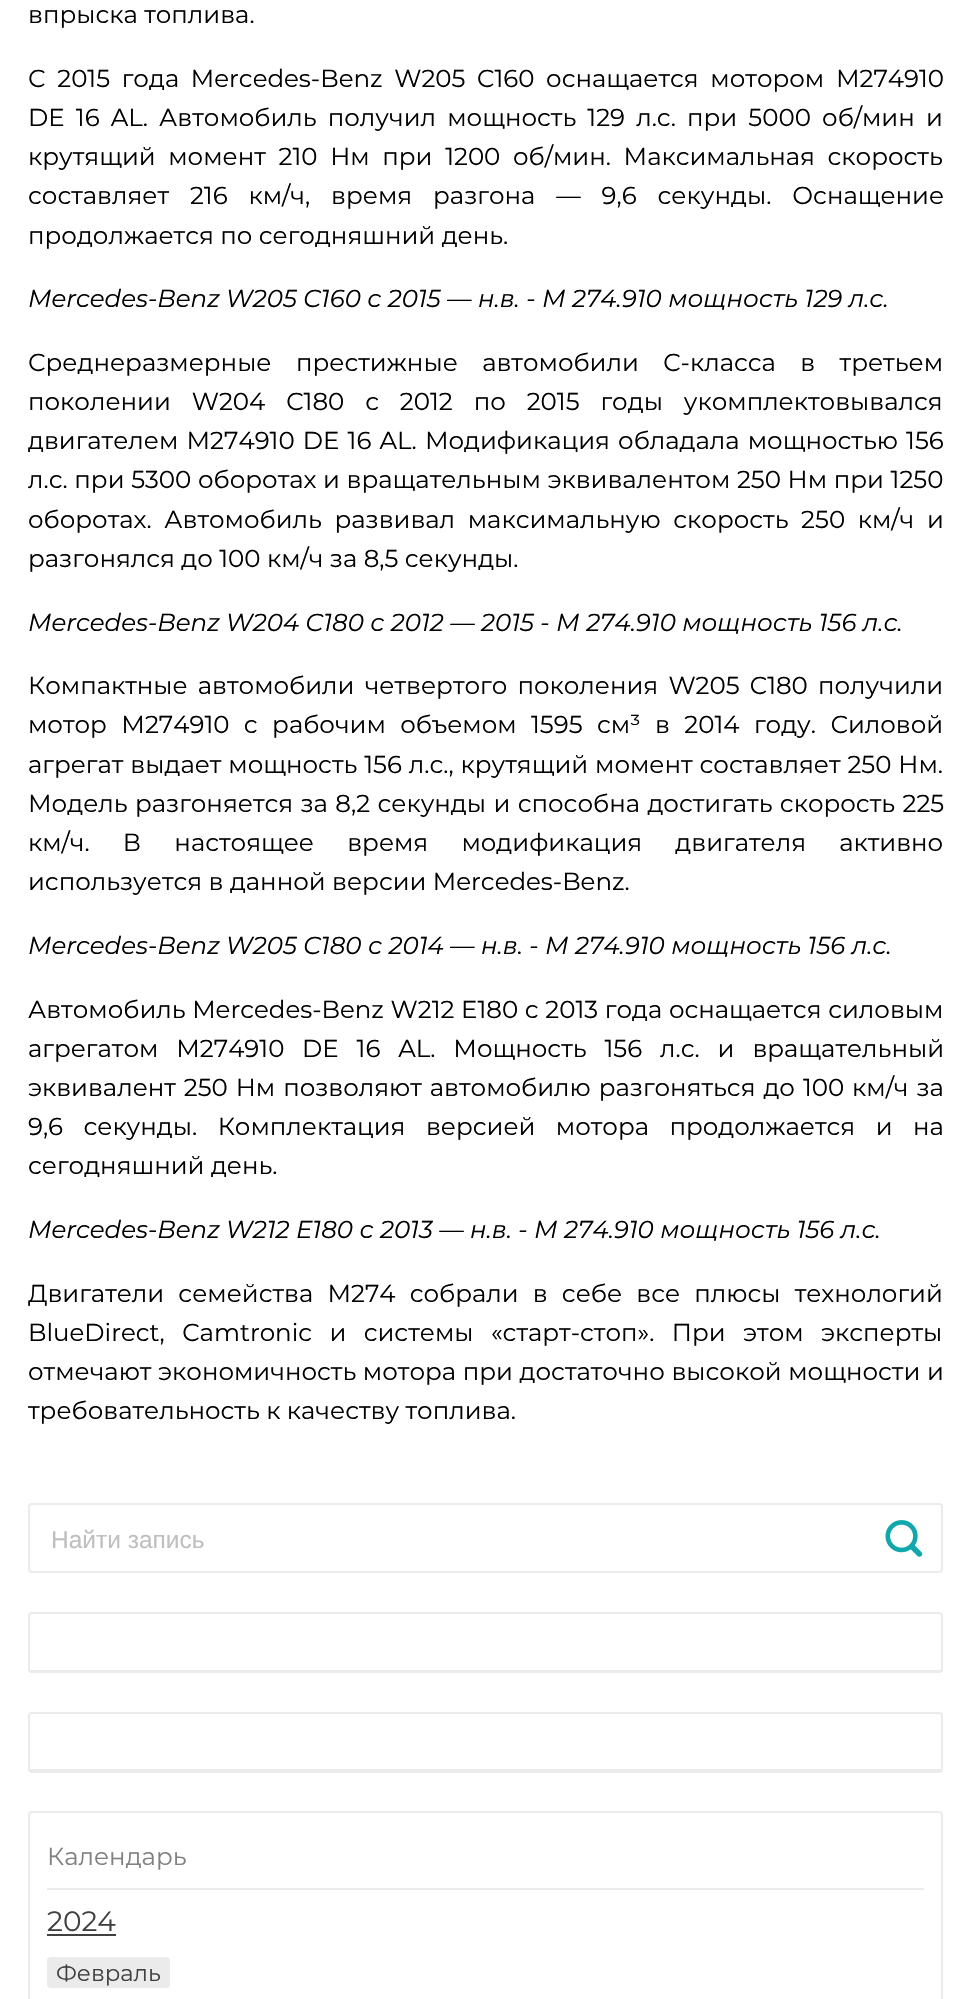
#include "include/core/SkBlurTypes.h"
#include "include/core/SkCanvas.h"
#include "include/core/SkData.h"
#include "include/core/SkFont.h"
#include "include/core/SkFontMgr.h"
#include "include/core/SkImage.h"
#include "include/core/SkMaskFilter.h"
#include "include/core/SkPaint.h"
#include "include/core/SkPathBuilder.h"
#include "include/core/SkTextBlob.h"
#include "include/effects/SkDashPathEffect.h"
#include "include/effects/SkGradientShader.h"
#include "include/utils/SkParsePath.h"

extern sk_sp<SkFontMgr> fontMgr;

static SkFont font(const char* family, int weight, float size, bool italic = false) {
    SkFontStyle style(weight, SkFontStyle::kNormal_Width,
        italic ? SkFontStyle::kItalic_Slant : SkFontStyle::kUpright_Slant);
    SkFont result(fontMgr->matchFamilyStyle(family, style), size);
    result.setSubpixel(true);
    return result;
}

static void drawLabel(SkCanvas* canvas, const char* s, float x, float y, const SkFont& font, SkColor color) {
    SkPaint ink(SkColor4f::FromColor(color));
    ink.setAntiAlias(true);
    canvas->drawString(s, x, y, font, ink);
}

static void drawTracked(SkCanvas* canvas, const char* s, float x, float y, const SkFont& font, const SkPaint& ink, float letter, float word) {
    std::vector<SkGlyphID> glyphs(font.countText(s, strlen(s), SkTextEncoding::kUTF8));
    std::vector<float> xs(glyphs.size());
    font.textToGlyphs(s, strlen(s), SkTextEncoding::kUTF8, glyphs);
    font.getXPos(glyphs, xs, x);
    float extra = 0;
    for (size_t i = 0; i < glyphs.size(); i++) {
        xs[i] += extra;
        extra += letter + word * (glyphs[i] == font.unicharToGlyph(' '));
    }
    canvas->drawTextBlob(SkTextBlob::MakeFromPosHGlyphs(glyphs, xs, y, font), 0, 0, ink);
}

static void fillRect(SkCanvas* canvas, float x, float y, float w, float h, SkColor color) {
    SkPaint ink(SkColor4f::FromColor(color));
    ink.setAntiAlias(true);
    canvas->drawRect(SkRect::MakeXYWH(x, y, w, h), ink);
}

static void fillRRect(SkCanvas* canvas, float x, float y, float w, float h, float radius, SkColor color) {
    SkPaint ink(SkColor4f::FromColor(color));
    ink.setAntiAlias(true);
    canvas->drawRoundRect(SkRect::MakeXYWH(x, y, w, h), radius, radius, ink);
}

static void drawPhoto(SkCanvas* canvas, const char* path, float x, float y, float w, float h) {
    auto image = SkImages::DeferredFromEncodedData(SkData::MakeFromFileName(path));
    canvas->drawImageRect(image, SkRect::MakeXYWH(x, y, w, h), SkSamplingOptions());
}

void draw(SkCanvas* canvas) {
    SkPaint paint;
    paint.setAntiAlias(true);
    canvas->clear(0xFFFFFFFF);
    SkFont font1 = font("Montserrat", 400, 24.5f);
    drawLabel(canvas, "впрыска топлива.", 28, 23, font1, 0xFF000000);
    paint.setColor(0xFF000000);
    drawTracked(canvas, "С 2015 года Mercedes-Benz W205 C160 оснащается мотором М274910", 28, 87, font1, paint, 0, 5.25f);
    drawTracked(canvas, "DE 16 AL. Автомобиль получил мощность 129 л.с. при 5000 об/мин и", 28, 126, font1, paint, 0, 4.75f);
    drawTracked(canvas, "крутящий момент 210 Нм при 1200 об/мин. Максимальная скорость", 28, 165, font1, paint, 0, 6.25f);
    drawTracked(canvas, "составляет 216 км/ч, время разгона — 9,6 секунды. Оснащение", 28, 204, font1, paint, 0, 14.5f);
    drawLabel(canvas, "продолжается по сегодняшний день.", 28, 244, font1, 0xFF000000);
    SkFont font2 = font("Montserrat", 400, 24.5f, true);
    drawLabel(canvas, "Mercedes-Benz W205 C160 с 2015 — н.в. - М 274.910 мощность 129 л.с.", 28, 307, font2, 0xFF000000);
    drawTracked(canvas, "Среднеразмерные престижные автомобили C-класса в третьем", 28, 371, font1, paint, 0, 18);
    drawTracked(canvas, "поколении W204 C180 с 2012 по 2015 годы укомплектовывался", 28, 410, font1, paint, 0, 14.5f);
    drawTracked(canvas, "двигателем М274910 DE 16 AL. Модификация обладала мощностью 156", 28, 449, font1, paint, 0, 1.75f);
    drawTracked(canvas, "л.с. при 5300 оборотах и вращательным эквивалентом 250 Нм при 1250", 28, 488, font1, paint, 0, 0.25f);
    drawTracked(canvas, "оборотах. Автомобиль развивал максимальную скорость 250 км/ч и", 28, 528, font1, paint, 0, 6.25f);
    drawLabel(canvas, "разгонялся до 100 км/ч за 8,5 секунды.", 28, 567, font1, 0xFF000000);
    drawLabel(canvas, "Mercedes-Benz W204 C180 с 2012 — 2015 - М 274.910 мощность 156 л.с.", 28, 631, font2, 0xFF000000);
    drawTracked(canvas, "Компактные автомобили четвертого поколения W205 C180 получили", 28, 694, font1, paint, 0, 3.75f);
    drawTracked(canvas, "мотор М274910 с рабочим объемом 1595 см³ в 2014 году. Силовой", 28, 733, font1, paint, 0, 8);
    drawTracked(canvas, "агрегат выдает мощность 156 л.с., крутящий момент составляет 250 Нм.", 28, 773, font1, paint, 0, 0.5f);
    drawTracked(canvas, "Модель разгоняется за 8,2 секунды и способна достигать скорость 225", 28, 812, font1, paint, 0, 1);
    drawTracked(canvas, "км/ч. В настоящее время модификация двигателя активно", 28, 851, font1, paint, 0, 26.75f);
    drawLabel(canvas, "используется в данной версии Mercedes-Benz.", 28, 890, font1, 0xFF000000);
    drawLabel(canvas, "Mercedes-Benz W205 C180 с 2014 — н.в. - М 274.910 мощность 156 л.с.", 28, 954, font2, 0xFF000000);
    drawTracked(canvas, "Автомобиль Mercedes-Benz W212 E180 с 2013 года оснащается силовым", 28, 1018, font1, paint, 0, 0.25f);
    drawTracked(canvas, "агрегатом М274910", 28, 1057, font1, paint, 0, 11.5f);
    drawTracked(canvas, "DE 16 AL. Мощность 156 л.с. и вращательный", 302, 1057, font1, paint, 0, 11.5f);
    drawTracked(canvas, "эквивалент 250 Нм позволяют автомобилю разгоняться до 100 км/ч за", 28, 1096, font1, paint, 0, 1.5f);
    drawTracked(canvas, "9,6 секунды. Комплектация версией мотора продолжается и на", 28, 1135, font1, paint, 0, 14);
    drawLabel(canvas, "сегодняшний день.", 28, 1174, font1, 0xFF000000);
    drawLabel(canvas, "Mercedes-Benz W212 E180 с 2013 — н.в. - М 274.910 мощность 156 л.с.", 28, 1238, font2, 0xFF000000);
    drawTracked(canvas, "Двигатели семейства М274 собрали в себе все плюсы технологий", 28, 1302, font1, paint, 0, 7.75f);
    drawTracked(canvas, "BlueDirect, Camtronic и системы «старт-стоп». При этом эксперты", 28, 1341, font1, paint, 0, 11);
    drawTracked(canvas, "отмечают экономичность мотора при достаточно высокой мощности и", 28, 1380, font1, paint, 0, 0.25f);
    drawLabel(canvas, "требовательность к качеству топлива.", 28, 1419, font1, 0xFF000000);
    paint.setStroke(true);
    paint.setStrokeWidth(2);
    paint.setColor(0xFFEBEBEB);
    canvas->drawRoundRect(SkRect::MakeXYWH(29, 1504, 913, 68), 3, 3, paint);
    SkFont font3 = font("Liberation Sans", 400, 24.5f);
    drawLabel(canvas, "Найти запись", 51, 1548, font3, 0xFFBFBFBF);
    drawPhoto(canvas, "assets/img1.png", 885, 1520, 38, 37);
    canvas->drawRoundRect(SkRect::MakeXYWH(29, 1613, 913, 59), 3, 3, paint);
    fillRect(canvas, 30, 1670, 912, 1, 0xFFEBEBEB);
    canvas->drawRoundRect(SkRect::MakeXYWH(29, 1713, 913, 59), 3, 3, paint);
    fillRect(canvas, 30, 1769, 912, 2, 0xFFEBEBEB);
    canvas->drawRoundRect(SkRect::MakeXYWH(29, 1812, 913, 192), 3, 3, paint);
    fillRect(canvas, 47, 1888, 877, 2, 0xFFEBEBEB);
    drawLabel(canvas, "Календарь", 47, 1865, font1, 0xFF808080);
    SkFont font4 = font("Montserrat", 400, 28);
    drawLabel(canvas, "2024", 47, 1931, font4, 0xFF404040);
    fillRect(canvas, 47, 1934, 69, 2, 0xFF404040);
    fillRRect(canvas, 47, 1957, 123, 31, 4, 0xFFEBEBEB);
    SkFont font5 = font("Montserrat", 400, 22.75f);
    drawLabel(canvas, "Февраль", 56, 1981, font5, 0xFF404040);
}
